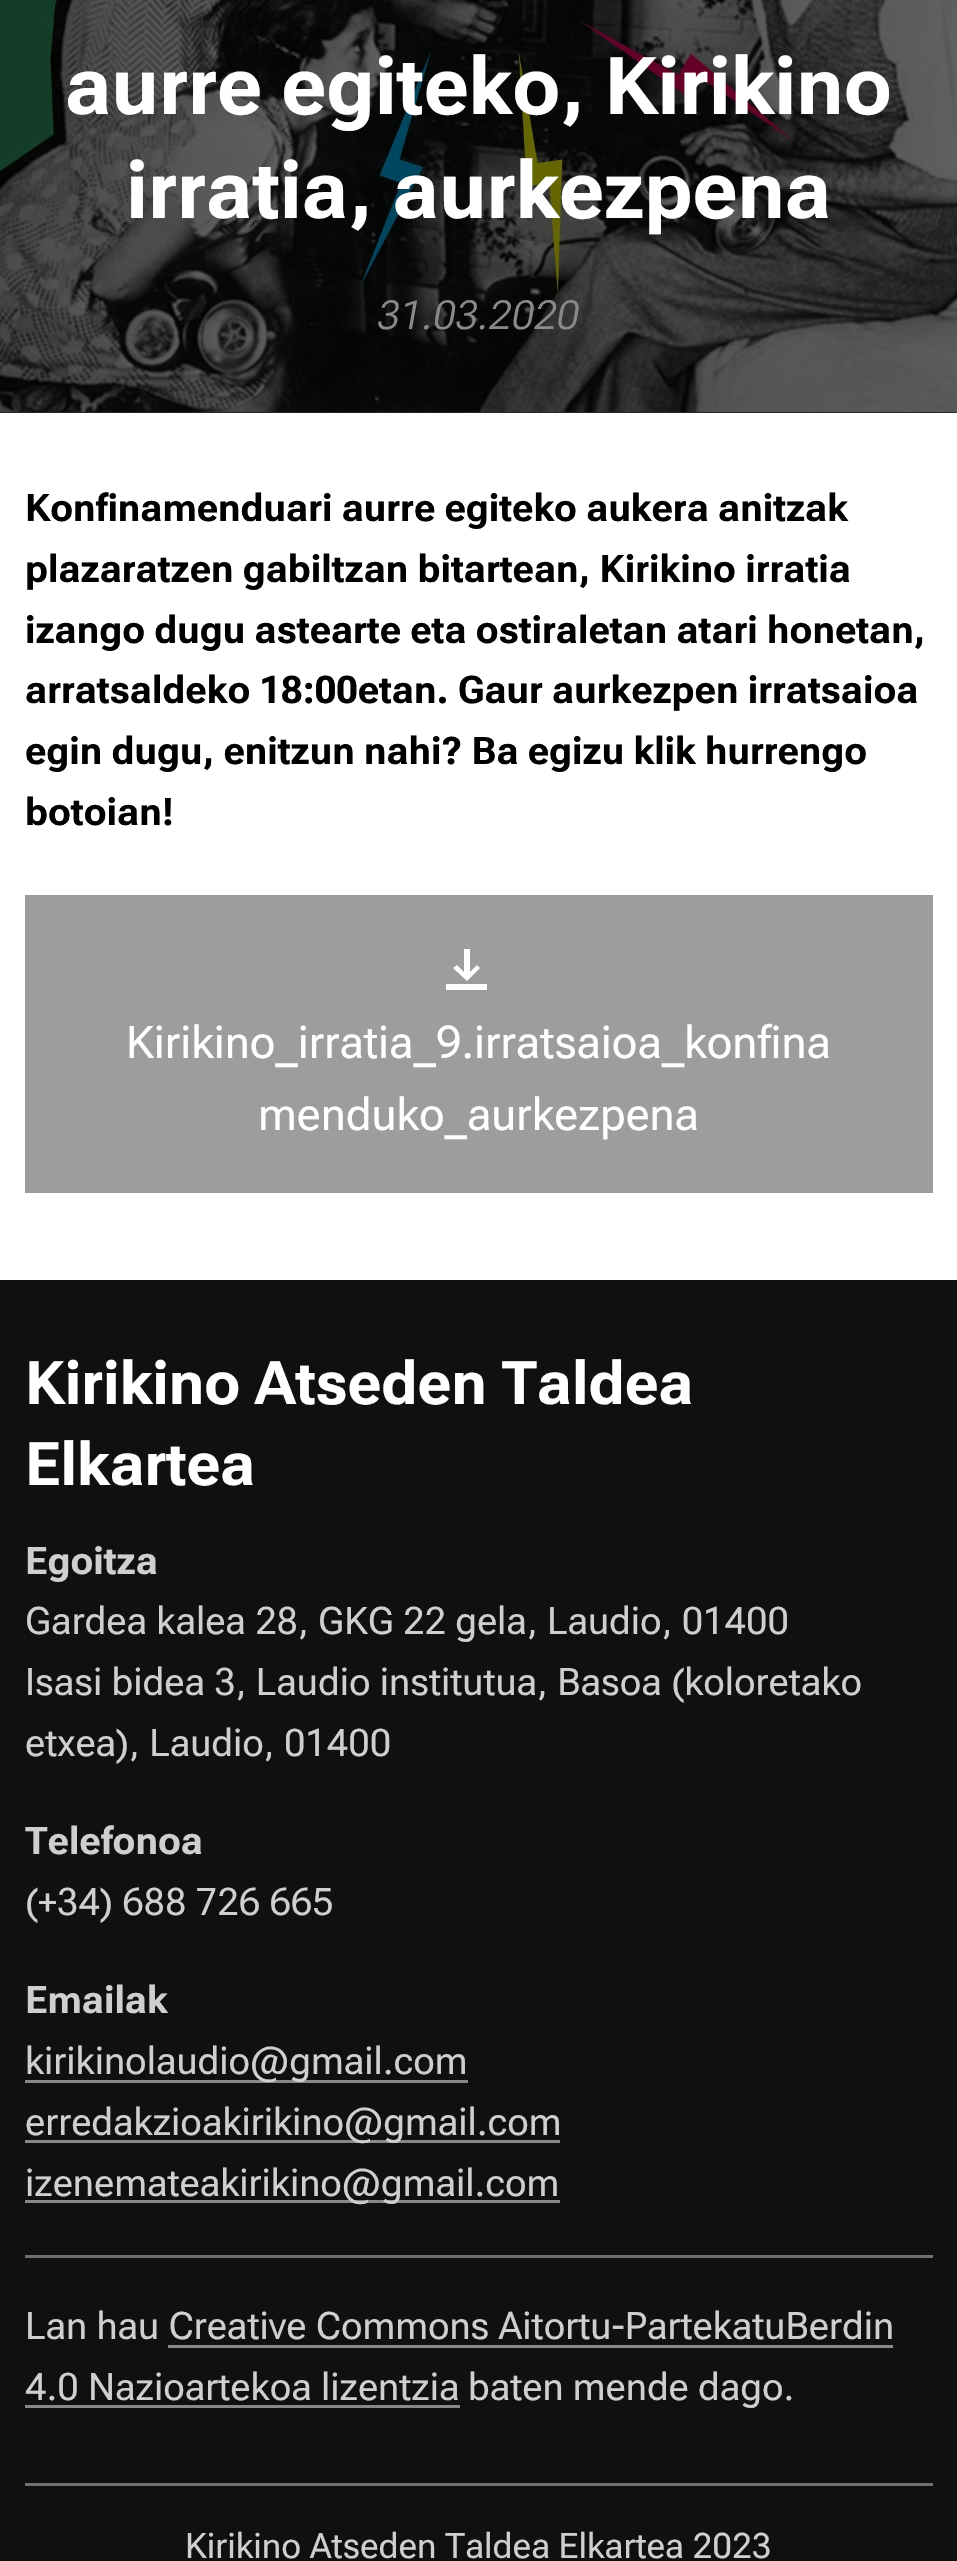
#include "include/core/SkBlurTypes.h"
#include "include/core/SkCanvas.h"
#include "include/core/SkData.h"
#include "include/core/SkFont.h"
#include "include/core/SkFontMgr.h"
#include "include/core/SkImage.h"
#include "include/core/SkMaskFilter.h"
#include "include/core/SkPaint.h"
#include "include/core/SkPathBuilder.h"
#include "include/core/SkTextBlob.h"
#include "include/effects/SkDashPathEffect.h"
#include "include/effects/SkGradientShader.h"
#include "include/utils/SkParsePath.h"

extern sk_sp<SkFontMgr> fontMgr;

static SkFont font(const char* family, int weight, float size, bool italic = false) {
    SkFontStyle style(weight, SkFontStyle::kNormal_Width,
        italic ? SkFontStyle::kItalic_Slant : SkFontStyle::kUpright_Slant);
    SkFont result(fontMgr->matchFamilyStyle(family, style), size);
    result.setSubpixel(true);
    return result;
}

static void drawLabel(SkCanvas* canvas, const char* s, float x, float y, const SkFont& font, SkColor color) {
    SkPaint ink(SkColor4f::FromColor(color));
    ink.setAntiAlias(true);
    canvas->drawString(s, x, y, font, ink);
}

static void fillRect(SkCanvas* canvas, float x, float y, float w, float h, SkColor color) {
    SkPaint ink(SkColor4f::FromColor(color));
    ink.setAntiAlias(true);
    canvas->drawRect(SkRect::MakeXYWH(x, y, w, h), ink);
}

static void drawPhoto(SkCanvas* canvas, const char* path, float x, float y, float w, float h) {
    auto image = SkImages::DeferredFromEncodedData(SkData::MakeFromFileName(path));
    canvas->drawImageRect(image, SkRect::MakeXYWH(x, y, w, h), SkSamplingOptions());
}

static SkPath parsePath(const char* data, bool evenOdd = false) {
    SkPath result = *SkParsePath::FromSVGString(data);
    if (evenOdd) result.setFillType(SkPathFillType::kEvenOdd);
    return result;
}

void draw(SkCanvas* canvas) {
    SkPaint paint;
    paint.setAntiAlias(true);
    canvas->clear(0xFFFFFFFF);
    fillRect(canvas, 0, 412, 957, 1, 0xFF272727);
    drawPhoto(canvas, "assets/img1.png", 0, 0, 957, 412);
    SkFont font1 = font("Roboto Flex", 700, 80);
    drawLabel(canvas, "aurre egiteko, Kirikino", 65, 114, font1, 0xFFFFFFFF);
    drawLabel(canvas, "irratia, aurkezpena", 126, 218, font1, 0xFFFFFFFF);
    SkFont font2 = font("Roboto Flex", 300, 40, true);
    drawLabel(canvas, "31.03.2020", 378, 329, font2, 0xFF8A8A8A);
    SkFont font3 = font("Roboto Flex", 700, 38);
    drawLabel(canvas, "Konfinamenduari aurre egiteko aukera anitzak", 25, 521, font3, 0xFF000000);
    drawLabel(canvas, "plazaratzen gabiltzan bitartean, Kirikino irratia", 25, 582, font3, 0xFF000000);
    drawLabel(canvas, "izango dugu astearte eta ostiraletan atari honetan,", 25, 643, font3, 0xFF000000);
    drawLabel(canvas, "arratsaldeko 18:00etan. Gaur aurkezpen irratsaioa", 25, 703, font3, 0xFF000000);
    drawLabel(canvas, "egin dugu, enitzun nahi? Ba egizu klik hurrengo", 25, 764, font3, 0xFF000000);
    drawLabel(canvas, "botoian!", 25, 825, font3, 0xFF000000);
    fillRect(canvas, 25, 895, 908, 298, 0xFF9D9D9D);
    paint.setColor(0xFFFFFFFF);
    canvas->drawPath(parsePath("M467 981L453 968L457 965L467 975L477 965L480 968ZM464 949H470V975H464ZM446 984H487V990H446Z"), paint);
    SkFont font4 = font("Roboto Flex", 400, 45);
    drawLabel(canvas, "Kirikino_irratia_9.irratsaioa_konfina", 126, 1058, font4, 0xFFFFFFFF);
    drawLabel(canvas, "menduko_aurkezpena", 258, 1130, font4, 0xFFFFFFFF);
    fillRect(canvas, 0, 1280, 957, 1281, 0xFF101010);
    SkFont font5 = font("Roboto Flex", 700, 60);
    drawLabel(canvas, "Kirikino Atseden Taldea", 25, 1404, font5, 0xFFFFFFFF);
    drawLabel(canvas, "Elkartea", 25, 1485, font5, 0xFFFFFFFF);
    drawLabel(canvas, "Egoitza", 25, 1574, font3, 0xFFCFCFCF);
    SkFont font6 = font("Roboto Flex", 400, 38);
    drawLabel(canvas, "Gardea kalea 28, GKG 22 gela, Laudio, 01400", 25, 1634, font6, 0xFFCFCFCF);
    drawLabel(canvas, "Isasi bidea 3, Laudio institutua, Basoa (koloretako", 25, 1695, font6, 0xFFCFCFCF);
    drawLabel(canvas, "etxea), Laudio, 01400", 25, 1756, font6, 0xFFCFCFCF);
    drawLabel(canvas, "Telefonoa", 25, 1854, font3, 0xFFCFCFCF);
    drawLabel(canvas, "(+34) 688 726 665", 25, 1915, font6, 0xFFCFCFCF);
    drawLabel(canvas, "Emailak", 25, 2013, font3, 0xFFCFCFCF);
    fillRect(canvas, 25, 2080, 443, 3, 0xFF888888);
    drawLabel(canvas, "kirikinolaudio@gmail.com", 25, 2074, font6, 0xFFCFCFCF);
    fillRect(canvas, 25, 2140, 535, 3, 0xFF888888);
    drawLabel(canvas, "erredakzioakirikino@gmail.com", 25, 2135, font6, 0xFFCFCFCF);
    fillRect(canvas, 25, 2200, 535, 3, 0xFF888888);
    drawLabel(canvas, "izenemateakirikino@gmail.com", 25, 2196, font6, 0xFFCFCFCF);
    fillRect(canvas, 25, 2255, 908, 3, 0xFF707070);
    drawLabel(canvas, "Lan hau Creative Commons Aitortu-PartekatuBerdin", 25, 2339, font6, 0xFFCFCFCF);
    drawLabel(canvas, "4.0 Nazioartekoa lizentzia", 25, 2400, font6, 0xFFCFCFCF);
    fillRect(canvas, 168, 2345, 725, 3, 0xFF888888);
    fillRect(canvas, 25, 2405, 435, 3, 0xFF888888);
    drawLabel(canvas, "baten mende dago.", 468, 2400, font6, 0xFFCFCFCF);
    fillRect(canvas, 25, 2483, 908, 3, 0xFF707070);
    SkFont font7 = font("Roboto Flex", 400, 35);
    drawLabel(canvas, "Kirikino Atseden Taldea Elkartea 2023", 185, 2558, font7, 0xFFCFCFCF);
}
